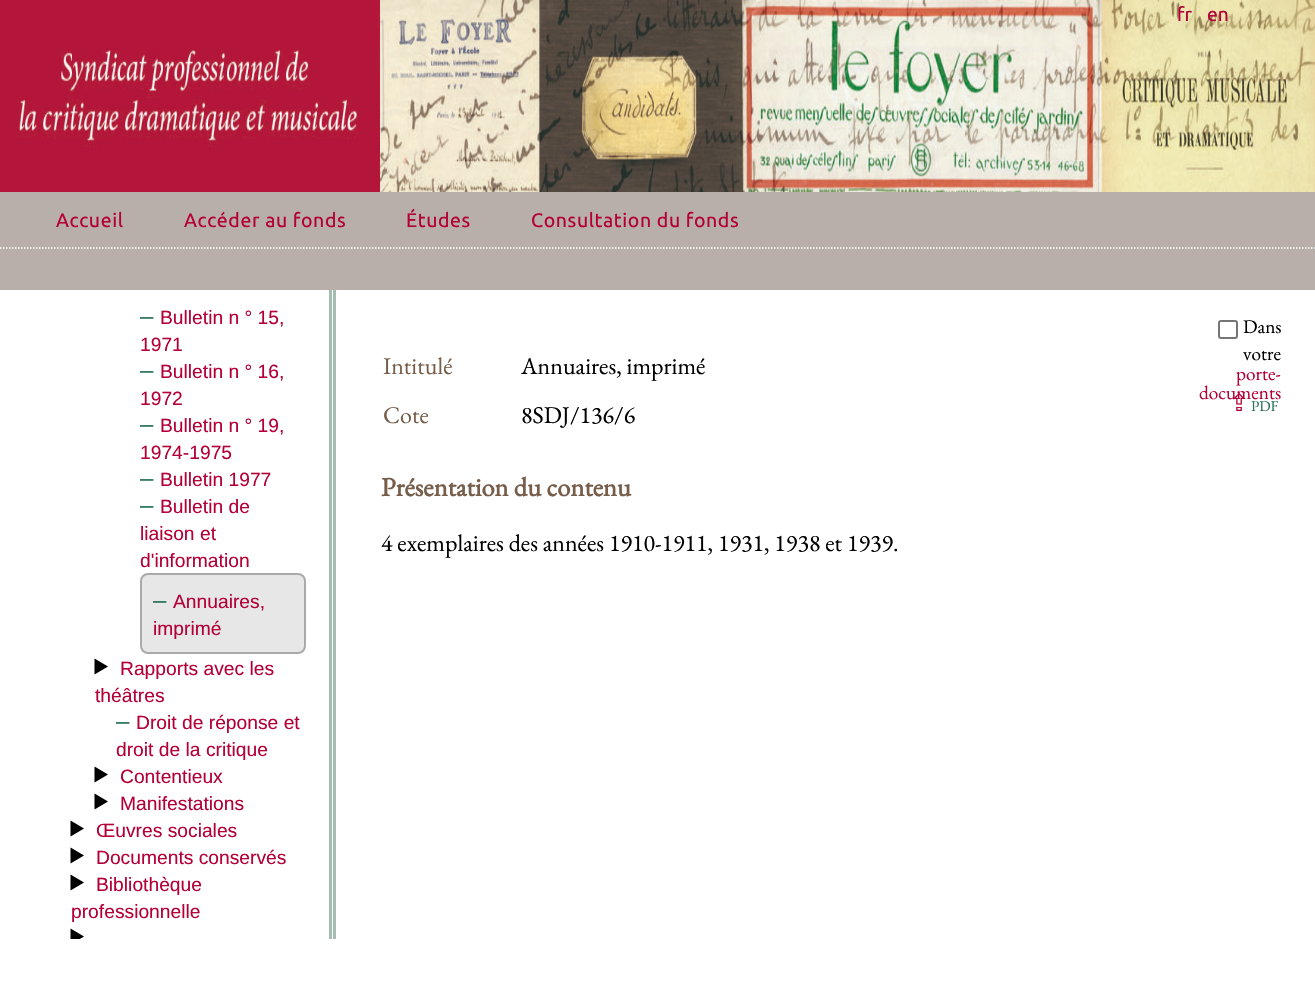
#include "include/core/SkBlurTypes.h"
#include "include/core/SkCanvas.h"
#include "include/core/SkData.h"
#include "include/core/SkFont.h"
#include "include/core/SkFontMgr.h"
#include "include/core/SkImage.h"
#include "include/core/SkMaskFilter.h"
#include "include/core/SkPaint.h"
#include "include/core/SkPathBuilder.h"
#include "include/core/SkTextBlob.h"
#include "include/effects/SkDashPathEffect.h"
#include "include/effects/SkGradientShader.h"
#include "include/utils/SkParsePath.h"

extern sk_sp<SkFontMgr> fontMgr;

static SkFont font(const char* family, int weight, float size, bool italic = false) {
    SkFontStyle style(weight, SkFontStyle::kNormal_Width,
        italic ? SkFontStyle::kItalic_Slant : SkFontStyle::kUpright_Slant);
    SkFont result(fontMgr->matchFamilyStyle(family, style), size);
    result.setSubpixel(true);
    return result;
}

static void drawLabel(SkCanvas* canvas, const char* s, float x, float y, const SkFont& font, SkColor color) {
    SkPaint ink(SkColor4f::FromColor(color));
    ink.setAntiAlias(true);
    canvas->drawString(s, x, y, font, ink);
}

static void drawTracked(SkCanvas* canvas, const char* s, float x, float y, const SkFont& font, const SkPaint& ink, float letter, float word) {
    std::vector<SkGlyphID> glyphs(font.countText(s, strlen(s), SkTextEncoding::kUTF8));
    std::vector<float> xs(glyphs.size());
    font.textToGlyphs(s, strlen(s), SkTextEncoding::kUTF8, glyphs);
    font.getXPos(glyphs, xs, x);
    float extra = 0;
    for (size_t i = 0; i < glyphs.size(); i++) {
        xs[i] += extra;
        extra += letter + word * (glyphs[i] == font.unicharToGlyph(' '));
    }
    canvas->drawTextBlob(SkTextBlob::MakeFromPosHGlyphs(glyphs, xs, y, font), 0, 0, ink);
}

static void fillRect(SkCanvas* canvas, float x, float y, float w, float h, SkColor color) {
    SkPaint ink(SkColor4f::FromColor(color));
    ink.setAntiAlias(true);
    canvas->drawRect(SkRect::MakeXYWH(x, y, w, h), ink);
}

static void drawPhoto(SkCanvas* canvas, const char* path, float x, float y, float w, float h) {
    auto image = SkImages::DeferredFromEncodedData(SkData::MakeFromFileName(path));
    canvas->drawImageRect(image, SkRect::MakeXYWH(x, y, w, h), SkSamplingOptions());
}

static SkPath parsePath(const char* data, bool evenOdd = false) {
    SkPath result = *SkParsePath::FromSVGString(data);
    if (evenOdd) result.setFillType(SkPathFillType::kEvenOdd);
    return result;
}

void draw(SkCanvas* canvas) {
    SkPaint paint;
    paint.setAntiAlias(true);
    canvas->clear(0xFFFFFFFF);
    drawPhoto(canvas, "assets/img1.png", 0, 0, 1315, 192);
    fillRect(canvas, 329, 288, 3, 651, 0xFFA6BDB2);
    fillRect(canvas, 333, 288, 3, 651, 0xFFA6BDB2);
    fillRect(canvas, 0, 192, 1315, 98, 0xFFB8AFAA);
    SkFont font1 = font("Ubuntu", 400, 19.25f);
    drawLabel(canvas, "fr", 1177, 21, font1, 0xFFB40037);
    drawLabel(canvas, "en", 1207, 21, font1, 0xFFB40037);
    SkFont font2 = font("Ubuntu", 400, 19.5f);
    paint.setColor(0xFFB40037);
    drawTracked(canvas, "Accueil", 56, 227, font2, paint, 0.6f, 0);
    drawTracked(canvas, "Accéder au fonds", 184, 227, font2, paint, 0.6f, 0);
    paint.setStroke(true);
    paint.setStrokeWidth(1.5f);
    paint.setColor(0xFFFFFFFF);
    paint.setPathEffect(SkDashPathEffect::Make({{1.5f, 1.5f}}, 0));
    canvas->drawPath(parsePath("M0 248H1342.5"), paint);
    paint.setPathEffect(nullptr);
    paint.setStroke(false);
    paint.setColor(0xFFB40037);
    drawTracked(canvas, "Études", 406, 227, font2, paint, 0.6f, 0);
    drawTracked(canvas, "Consultation du fonds", 531, 227, font2, paint, 0.6f, 0);
    SkFont font3 = font("Liberation Sans", 400, 24);
    drawLabel(canvas, "–", 140, 324, font3, 0xFF27735A);
    SkFont font4 = font("Liberation Sans", 400, 19.25f);
    drawLabel(canvas, "Bulletin n ° 15,", 160, 324, font4, 0xFFB40037);
    drawLabel(canvas, "1971", 140, 351, font4, 0xFFB40037);
    drawLabel(canvas, "–", 140, 378, font3, 0xFF27735A);
    drawLabel(canvas, "Bulletin n ° 16,", 160, 378, font4, 0xFFB40037);
    drawLabel(canvas, "1972", 140, 405, font4, 0xFFB40037);
    drawLabel(canvas, "–", 140, 432, font3, 0xFF27735A);
    drawLabel(canvas, "Bulletin n ° 19,", 160, 432, font4, 0xFFB40037);
    drawLabel(canvas, "1974-1975", 140, 459, font4, 0xFFB40037);
    drawLabel(canvas, "–", 140, 486, font3, 0xFF27735A);
    drawLabel(canvas, "Bulletin 1977", 160, 486, font4, 0xFFB40037);
    drawLabel(canvas, "–", 140, 513, font3, 0xFF27735A);
    drawLabel(canvas, "Bulletin de", 160, 513, font4, 0xFFB40037);
    drawLabel(canvas, "liaison et", 140, 540, font4, 0xFFB40037);
    drawLabel(canvas, "d'information", 140, 567, font4, 0xFFB40037);
    paint.setColor(0xFFE7E7E7);
    canvas->drawRoundRect(SkRect::MakeXYWH(141, 574, 164, 79), 7, 7, paint);
    paint.setStroke(true);
    paint.setStrokeWidth(2);
    paint.setColor(0xFFAAAAAA);
    canvas->drawRoundRect(SkRect::MakeXYWH(141, 574, 164, 79), 7, 7, paint);
    drawLabel(canvas, "–", 153, 608, font3, 0xFF27735A);
    drawLabel(canvas, "Annuaires,", 173, 608, font4, 0xFFB40037);
    drawLabel(canvas, "imprimé", 153, 635, font4, 0xFFB40037);
    paint.setStroke(false);
    paint.setColor(0xFF000000);
    canvas->drawPath(parsePath("M94.5 658.5L108 666.5L94.5 674.5Z"), paint);
    drawLabel(canvas, "Rapports avec les", 120, 675, font4, 0xFFB40037);
    drawLabel(canvas, "théâtres", 95, 702, font4, 0xFFB40037);
    drawLabel(canvas, "–", 116, 729, font3, 0xFF27735A);
    drawLabel(canvas, "Droit de réponse et", 136, 729, font4, 0xFFB40037);
    drawLabel(canvas, "droit de la critique", 116, 756, font4, 0xFFB40037);
    canvas->drawPath(parsePath("M94.5 766.5L108 774.5L94.5 782.5Z"), paint);
    drawLabel(canvas, "Contentieux", 120, 783, font4, 0xFFB40037);
    canvas->drawPath(parsePath("M94.5 793.5L108 801.5L94.5 809.5Z"), paint);
    drawLabel(canvas, "Manifestations", 120, 810, font4, 0xFFB40037);
    canvas->drawPath(parsePath("M70.5 820.5L84 828.5L70.5 836.5Z"), paint);
    drawLabel(canvas, "Œuvres sociales", 96, 837, font4, 0xFFB40037);
    canvas->drawPath(parsePath("M70.5 847.5L84 855.5L70.5 863.5Z"), paint);
    drawLabel(canvas, "Documents conservés", 96, 864, font4, 0xFFB40037);
    canvas->drawPath(parsePath("M70.5 874.5L84 882.5L70.5 890.5Z"), paint);
    drawLabel(canvas, "Bibliothèque", 96, 891, font4, 0xFFB40037);
    drawLabel(canvas, "professionnelle", 71, 918, font4, 0xFFB40037);
    canvas->save();
    canvas->clipRect(SkRect::MakeXYWH(0, 288, 329, 651));
    canvas->drawPath(parsePath("M70.5 928.5L84 936.5L70.5 944.5Z"), paint);
    canvas->restore();
    paint.setStroke(true);
    paint.setColor(0xFF767676);
    canvas->drawRoundRect(SkRect::MakeXYWH(1219, 321, 18, 17), 2, 2, paint);
    SkFont font5 = font("EB Garamond", 400, 19.25f);
    drawLabel(canvas, "Dans", 1243, 333, font5, 0xFF000000);
    drawLabel(canvas, "votre", 1243, 360, font5, 0xFF000000);
    drawLabel(canvas, "porte-", 1236, 380, font5, 0xFFB40037);
    drawLabel(canvas, "documents", 1199, 399, font5, 0xFFB40037);
    SkFont font6 = font("DejaVu Sans", 400, 24);
    drawLabel(canvas, "⇪", 1229, 411, font6, 0xFFB40037);
    SkFont font7 = font("EB Garamond", 400, 15);
    drawLabel(canvas, "PDF", 1251, 411, font7, 0xFF27735A);
    SkFont font8 = font("EB Garamond", 400, 24);
    drawLabel(canvas, "Intitulé", 383, 374, font8, 0xFF775E4B);
    drawLabel(canvas, "Annuaires, imprimé", 521, 374, font8, 0xFF000000);
    drawLabel(canvas, "Cote", 383, 423, font8, 0xFF775E4B);
    drawLabel(canvas, "8SDJ/136/6", 521, 423, font8, 0xFF000000);
    SkFont font9 = font("EB Garamond", 700, 26.5f);
    drawLabel(canvas, "Présentation du contenu", 381, 496, font9, 0xFF775E4B);
    drawLabel(canvas, "4 exemplaires des années 1910-1911, 1931, 1938 et 1939.", 381, 551, font8, 0xFF000000);
}
